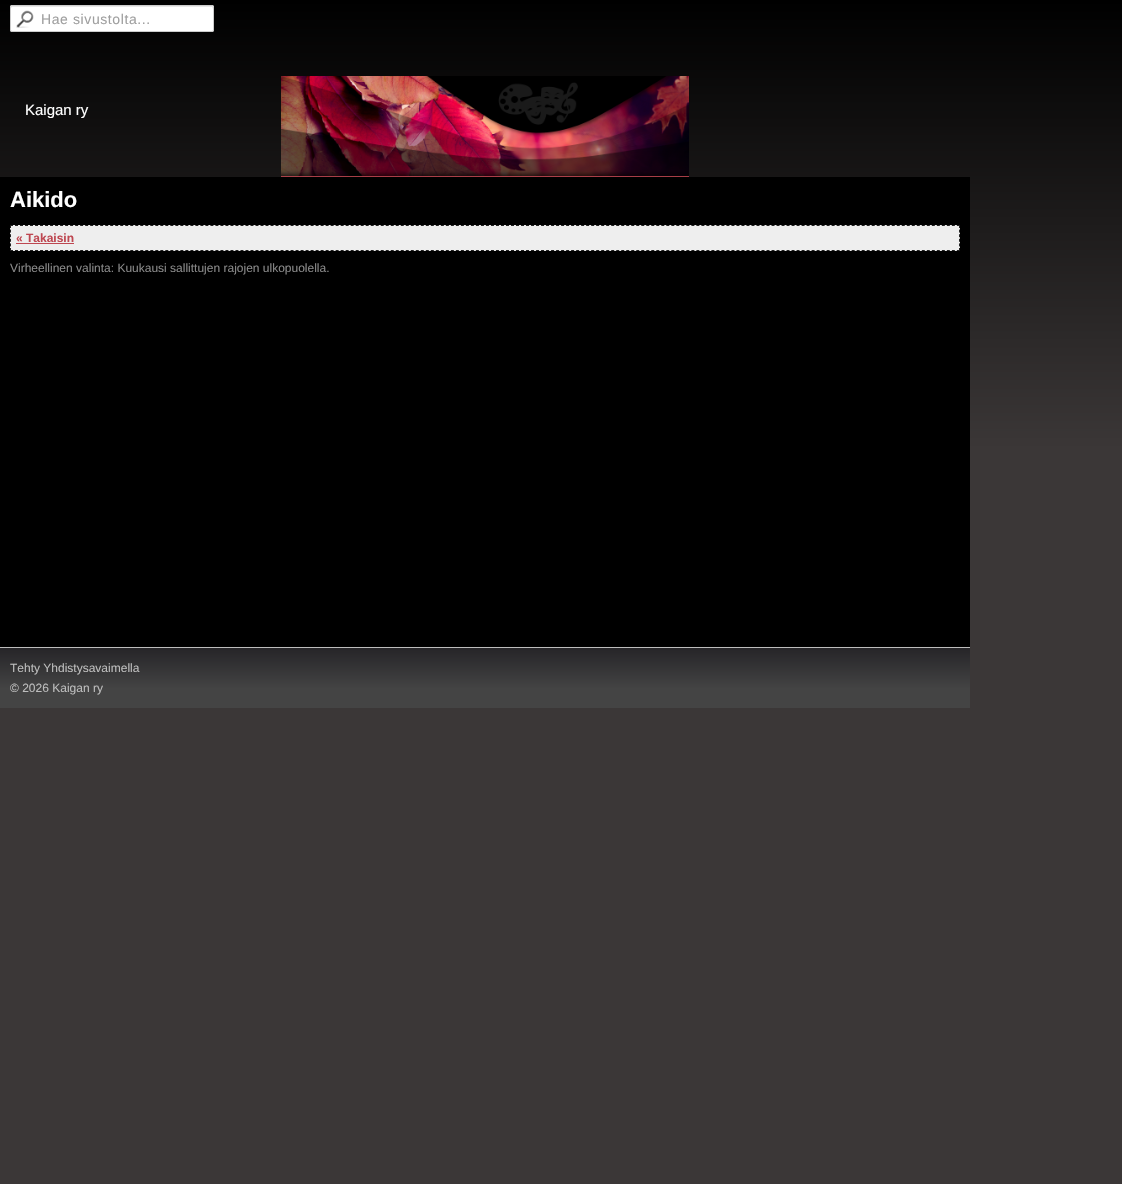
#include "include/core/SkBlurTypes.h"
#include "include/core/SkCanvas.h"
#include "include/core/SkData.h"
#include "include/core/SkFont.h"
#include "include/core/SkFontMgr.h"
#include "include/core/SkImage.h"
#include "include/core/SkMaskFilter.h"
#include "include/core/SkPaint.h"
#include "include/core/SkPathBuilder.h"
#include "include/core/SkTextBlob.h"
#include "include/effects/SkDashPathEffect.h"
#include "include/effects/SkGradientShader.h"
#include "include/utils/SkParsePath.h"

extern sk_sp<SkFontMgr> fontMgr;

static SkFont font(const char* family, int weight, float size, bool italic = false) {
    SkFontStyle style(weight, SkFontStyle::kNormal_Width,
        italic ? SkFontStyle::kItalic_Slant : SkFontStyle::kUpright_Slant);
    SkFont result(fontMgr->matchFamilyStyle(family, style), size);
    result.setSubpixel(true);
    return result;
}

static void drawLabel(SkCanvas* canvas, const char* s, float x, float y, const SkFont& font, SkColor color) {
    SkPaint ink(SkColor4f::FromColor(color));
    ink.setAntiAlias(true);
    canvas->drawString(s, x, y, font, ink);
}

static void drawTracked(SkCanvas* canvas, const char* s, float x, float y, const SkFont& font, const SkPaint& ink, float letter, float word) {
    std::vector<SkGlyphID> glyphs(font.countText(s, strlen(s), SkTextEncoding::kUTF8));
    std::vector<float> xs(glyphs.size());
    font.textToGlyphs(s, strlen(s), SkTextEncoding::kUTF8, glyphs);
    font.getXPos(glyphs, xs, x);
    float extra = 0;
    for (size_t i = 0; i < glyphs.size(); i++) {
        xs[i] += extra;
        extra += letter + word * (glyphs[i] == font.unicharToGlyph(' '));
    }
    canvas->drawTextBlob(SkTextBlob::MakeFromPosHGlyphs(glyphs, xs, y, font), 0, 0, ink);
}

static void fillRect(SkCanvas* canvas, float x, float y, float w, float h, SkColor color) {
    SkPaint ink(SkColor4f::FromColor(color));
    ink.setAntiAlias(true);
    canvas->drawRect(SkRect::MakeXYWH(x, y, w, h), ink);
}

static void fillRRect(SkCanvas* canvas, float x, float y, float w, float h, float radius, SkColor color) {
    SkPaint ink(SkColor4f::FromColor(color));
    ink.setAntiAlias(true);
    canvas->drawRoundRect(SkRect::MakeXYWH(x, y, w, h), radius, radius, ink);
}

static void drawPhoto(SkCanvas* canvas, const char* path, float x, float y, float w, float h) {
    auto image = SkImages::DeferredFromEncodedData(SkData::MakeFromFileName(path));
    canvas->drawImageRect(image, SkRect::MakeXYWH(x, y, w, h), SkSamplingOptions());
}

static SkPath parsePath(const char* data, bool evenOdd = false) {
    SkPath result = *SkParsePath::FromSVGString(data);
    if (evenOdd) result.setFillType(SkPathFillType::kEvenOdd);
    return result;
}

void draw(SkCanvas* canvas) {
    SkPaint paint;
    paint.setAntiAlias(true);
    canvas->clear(0xFFFFFFFF);
    {
        const SkColor colors[] = {0xFF000000, 0xFF3B3737, 0xFF3B3737};
        const float stops[] = {0, 0.38f, 1};
        const SkPoint ends[] = {{561, 0}, {561, 1184}};
        paint.setShader(SkGradientShader::MakeLinear(ends, colors, stops, 3, SkTileMode::kClamp));
        paint.setAlpha(255);
    }
    canvas->drawRect(SkRect::MakeXYWH(0, 0, 1122, 1184), paint);
    fillRRect(canvas, 10, 5, 204, 27, 2, 0xFFFFFFFF);
    drawPhoto(canvas, "assets/img1.png", 16, 10, 18, 18);
    paint.setShader(nullptr);
    paint.setColor(0xFFE6E6E6);
    canvas->drawPath(parsePath("M12 7H212L213 9C213 8 213 6 212 6H11V8Z"), paint);
    paint.setStroke(true);
    paint.setStrokeWidth(1);
    paint.setColor(0xFFCCCCCC);
    canvas->drawRoundRect(SkRect::MakeXYWH(10.5f, 5.5f, 203, 26), 1.5f, 1.5f, paint);
    SkFont font1 = font("Liberation Sans", 400, 14);
    paint.setStroke(false);
    paint.setColor(0xFF9F9F9F);
    drawTracked(canvas, "Hae sivustolta...", 41, 24, font1, paint, 0.6f, 0);
    drawPhoto(canvas, "assets/img2.png", 281, 76, 408, 101);
    SkFont font2 = font("Liberation Sans", 400, 15);
    drawLabel(canvas, "Kaigan ry", 25, 115, font2, 0xFFFFFFFF);
    fillRect(canvas, 0, 177, 970, 470, 0xFF000000);
    SkFont font3 = font("Liberation Sans", 700, 22);
    drawLabel(canvas, "Aikido", 10, 207, font3, 0xFFFFFFFF);
    fillRect(canvas, 10, 225, 950, 26, 0xFFEEEEEE);
    paint.setStroke(true);
    paint.setColor(0xFF222222);
    paint.setPathEffect(SkDashPathEffect::Make({{3, 2.01f}}, 0));
    canvas->drawPath(parsePath("M10 225.5H960"), paint);
    paint.setPathEffect(nullptr);
    paint.setPathEffect(SkDashPathEffect::Make({{3, 1.6f}}, 0));
    canvas->drawPath(parsePath("M959.5 225V251"), paint);
    paint.setPathEffect(nullptr);
    paint.setPathEffect(SkDashPathEffect::Make({{3, 2.01f}}, 0));
    canvas->drawPath(parsePath("M10 250.5H960"), paint);
    paint.setPathEffect(nullptr);
    paint.setPathEffect(SkDashPathEffect::Make({{3, 1.6f}}, 0));
    canvas->drawPath(parsePath("M10.5 225V251"), paint);
    paint.setPathEffect(nullptr);
    SkFont font4 = font("Liberation Sans", 700, 12);
    drawLabel(canvas, "« Takaisin", 16, 242, font4, 0xFFBE4751);
    fillRect(canvas, 16, 243, 58, 1, 0xFFBE4751);
    SkFont font5 = font("Liberation Sans", 400, 12);
    drawLabel(canvas, "Virheellinen valinta: Kuukausi sallittujen rajojen ulkopuolella.", 10, 272, font5, 0xFF888888);
    paint.setStroke(false);
    {
        const SkColor colors[] = {0xFF262528, 0xFF444444, 0xFF444444};
        const float stops[] = {0, 0.68f, 1};
        const SkPoint ends[] = {{485, 648}, {485, 708}};
        paint.setShader(SkGradientShader::MakeLinear(ends, colors, stops, 3, SkTileMode::kClamp));
        paint.setAlpha(255);
    }
    canvas->drawRect(SkRect::MakeXYWH(0, 648, 970, 60), paint);
    fillRect(canvas, 0, 647, 970, 1, 0xFFBDBDBD);
    drawLabel(canvas, "Tehty Yhdistysavaimella", 10, 672, font5, 0xFFBDBDBD);
    drawLabel(canvas, "© 2026 Kaigan ry", 10, 692, font5, 0xFFBDBDBD);
}
